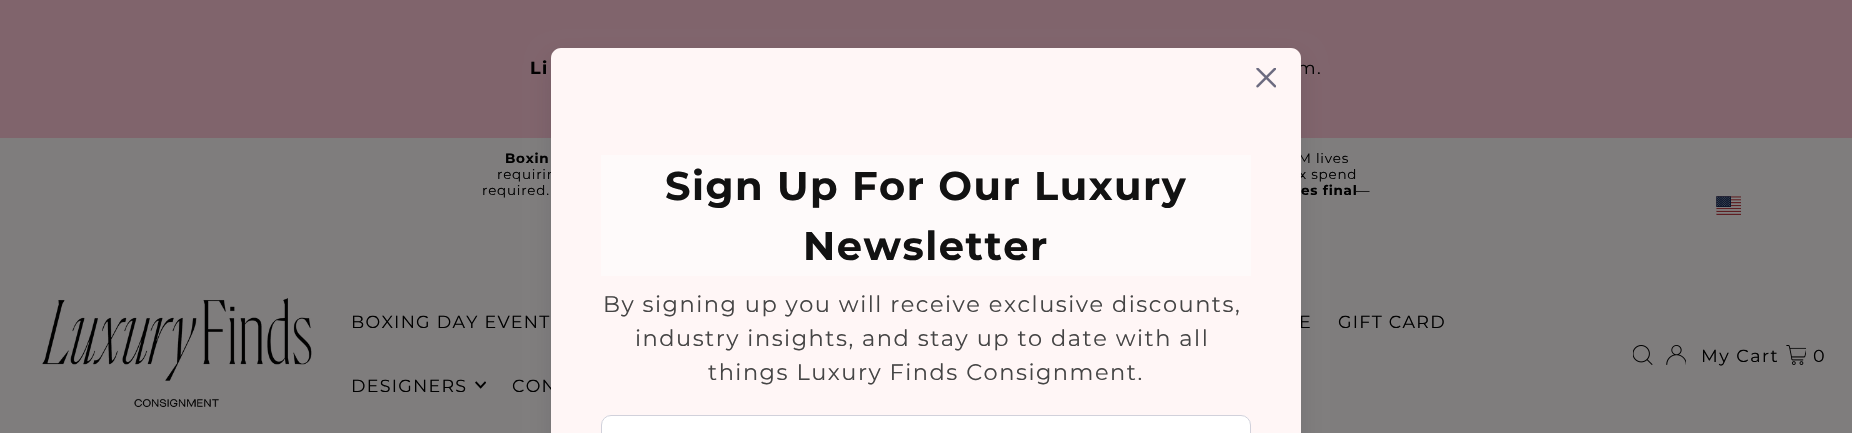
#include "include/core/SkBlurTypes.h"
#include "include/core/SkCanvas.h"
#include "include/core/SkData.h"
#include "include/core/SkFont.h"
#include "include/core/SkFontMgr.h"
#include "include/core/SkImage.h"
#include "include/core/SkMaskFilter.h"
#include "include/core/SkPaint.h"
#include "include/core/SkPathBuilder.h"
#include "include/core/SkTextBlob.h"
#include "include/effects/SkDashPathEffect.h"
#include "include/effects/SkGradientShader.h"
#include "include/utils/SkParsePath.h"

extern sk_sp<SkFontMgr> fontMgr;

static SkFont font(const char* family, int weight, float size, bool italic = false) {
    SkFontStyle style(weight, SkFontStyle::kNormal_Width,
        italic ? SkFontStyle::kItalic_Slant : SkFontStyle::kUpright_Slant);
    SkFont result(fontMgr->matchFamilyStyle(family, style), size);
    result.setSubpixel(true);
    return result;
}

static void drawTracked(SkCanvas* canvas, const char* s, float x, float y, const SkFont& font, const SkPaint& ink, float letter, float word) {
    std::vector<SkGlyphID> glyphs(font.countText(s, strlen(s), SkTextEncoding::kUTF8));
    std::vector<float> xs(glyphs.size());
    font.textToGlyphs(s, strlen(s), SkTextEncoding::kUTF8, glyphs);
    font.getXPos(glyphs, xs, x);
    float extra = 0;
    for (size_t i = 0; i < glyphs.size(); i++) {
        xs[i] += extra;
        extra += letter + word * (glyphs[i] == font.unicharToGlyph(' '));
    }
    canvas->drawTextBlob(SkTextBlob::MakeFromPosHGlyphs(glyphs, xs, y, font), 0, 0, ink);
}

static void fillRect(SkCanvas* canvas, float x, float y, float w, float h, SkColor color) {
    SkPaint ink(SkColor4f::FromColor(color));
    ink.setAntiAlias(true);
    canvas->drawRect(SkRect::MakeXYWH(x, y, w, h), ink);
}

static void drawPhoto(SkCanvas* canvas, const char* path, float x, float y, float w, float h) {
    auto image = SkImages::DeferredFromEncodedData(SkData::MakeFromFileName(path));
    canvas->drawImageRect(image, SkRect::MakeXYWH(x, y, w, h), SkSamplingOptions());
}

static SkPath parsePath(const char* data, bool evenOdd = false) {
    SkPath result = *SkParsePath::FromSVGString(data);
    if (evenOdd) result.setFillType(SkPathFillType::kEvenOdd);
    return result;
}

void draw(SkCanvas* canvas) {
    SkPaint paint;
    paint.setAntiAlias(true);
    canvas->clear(0xFF80646C);
    SkFont font1 = font("Montserrat", 700, 17.5f);
    paint.setColor(0xFF000000);
    drawTracked(canvas, "Li", 530, 74, font1, paint, 1.5f, 0);
    SkFont font2 = font("Montserrat", 400, 17.5f);
    drawTracked(canvas, "m.", 1297, 74, font2, paint, 1.5f, 0);
    fillRect(canvas, 0, 138, 1852, 295, 0xFF7F7D7D);
    SkFont font3 = font("Montserrat", 700, 13.5f);
    drawTracked(canvas, "Boxin", 505, 163, font3, paint, 0.75f, 0);
    SkFont font4 = font("Montserrat", 400, 13.5f);
    drawTracked(canvas, "M lives", 1298, 163, font4, paint, 0.75f, 0);
    drawTracked(canvas, "requirin", 497, 179, font4, paint, 0.75f, 0);
    drawTracked(canvas, "x spend", 1299, 179, font4, paint, 0.75f, 0);
    drawTracked(canvas, "required.", 482, 195, font4, paint, 0.75f, 0);
    drawTracked(canvas, "es final", 1301, 195, font3, paint, 0.75f, 0);
    drawTracked(canvas, "—", 1356, 195, font4, paint, 0.75f, 0);
    drawPhoto(canvas, "assets/img1.png", 1716, 196, 25, 19);
    drawPhoto(canvas, "assets/img2.png", 42, 298, 270, 110);
    drawTracked(canvas, "BOXING DAY EVENT", 351, 328, font2, paint, 1.25f, 0);
    drawTracked(canvas, "E", 1299, 328, font2, paint, 1.25f, 0);
    drawTracked(canvas, "GIFT CARD", 1338, 328, font2, paint, 1.25f, 0);
    drawTracked(canvas, "DESIGNERS", 351, 392, font2, paint, 1.25f, 0);
    drawPhoto(canvas, "assets/img3.png", 475, 381, 11, 8);
    drawTracked(canvas, "CON", 512, 392, font2, paint, 1.25f, 0);
    drawPhoto(canvas, "assets/img4.png", 1633, 345, 20, 20);
    drawPhoto(canvas, "assets/img5.png", 1666, 345, 20, 20);
    drawTracked(canvas, "My Cart", 1701, 362, font2, paint, 1.5f, 0);
    drawPhoto(canvas, "assets/img6.png", 1786, 345, 20, 20);
    drawTracked(canvas, "0", 1813, 362, font2, paint, 1.5f, 0);
    paint.setColor(0x1A121127);
    paint.setMaskFilter(SkMaskFilter::MakeBlur(kNormal_SkBlurStyle, 12.5f));
    canvas->drawRoundRect(SkRect::MakeXYWH(551, 58, 750, 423), 10, 10, paint);
    paint.setMaskFilter(nullptr);
    paint.setColor(0xFFFFF6F6);
    canvas->drawPath(parsePath("M561 48H1291C1296.5 48 1301 52.5 1301 58V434H551V58C551 52.5 555.5 48 561 48Z"), paint);
    drawPhoto(canvas, "assets/img7.png", 1256, 68, 20, 20);
    fillRect(canvas, 601, 155, 650, 121, 0xFFFEFAFA);
    SkFont font5 = font("Montserrat", 700, 40);
    paint.setColor(0xFF121212);
    drawTracked(canvas, "Sign Up For Our Luxury", 665, 200, font5, paint, 1.5f, 0);
    drawTracked(canvas, "Newsletter", 803, 260, font5, paint, 1.5f, 0);
    SkFont font6 = font("Montserrat", 400, 22.5f);
    paint.setColor(0xFF454545);
    drawTracked(canvas, "By signing up you will receive exclusive discounts,", 603, 312, font6, paint, 1.5f, 0);
    drawTracked(canvas, "industry insights, and stay up to date with all", 635, 346, font6, paint, 1.5f, 0);
    drawTracked(canvas, "things Luxury Finds Consignment.", 708, 380, font6, paint, 1.5f, 0);
    paint.setColor(0xFFFFFFFF);
    canvas->drawPath(parsePath("M611 415H1241C1246.5 415 1251 419.5 1251 425V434H601V425C601 419.5 605.5 415 611 415Z"), paint);
    paint.setStroke(true);
    paint.setStrokeWidth(1);
    paint.setColor(0xFFD1D1DB);
    canvas->drawRoundRect(SkRect::MakeXYWH(601.5f, 415.5f, 649, 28), 9.5f, 9.5f, paint);
}
